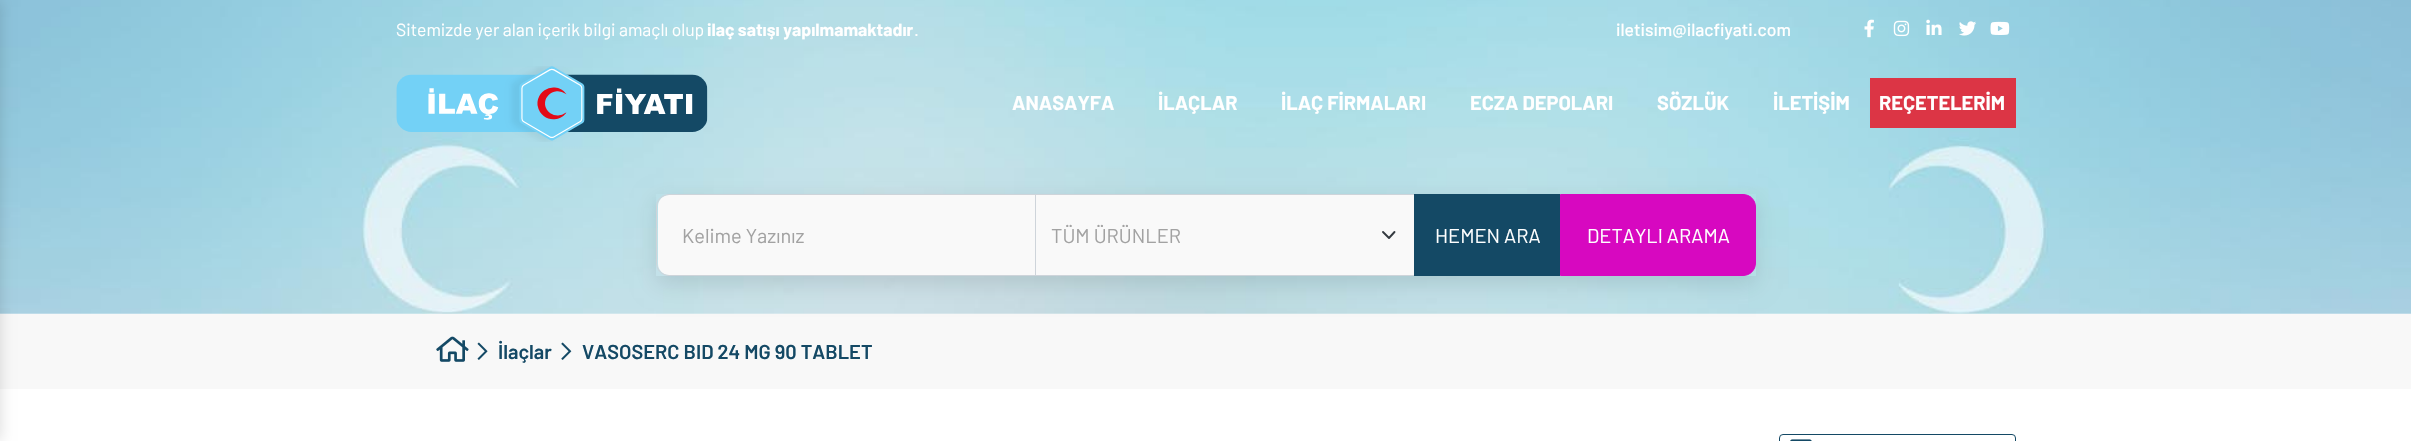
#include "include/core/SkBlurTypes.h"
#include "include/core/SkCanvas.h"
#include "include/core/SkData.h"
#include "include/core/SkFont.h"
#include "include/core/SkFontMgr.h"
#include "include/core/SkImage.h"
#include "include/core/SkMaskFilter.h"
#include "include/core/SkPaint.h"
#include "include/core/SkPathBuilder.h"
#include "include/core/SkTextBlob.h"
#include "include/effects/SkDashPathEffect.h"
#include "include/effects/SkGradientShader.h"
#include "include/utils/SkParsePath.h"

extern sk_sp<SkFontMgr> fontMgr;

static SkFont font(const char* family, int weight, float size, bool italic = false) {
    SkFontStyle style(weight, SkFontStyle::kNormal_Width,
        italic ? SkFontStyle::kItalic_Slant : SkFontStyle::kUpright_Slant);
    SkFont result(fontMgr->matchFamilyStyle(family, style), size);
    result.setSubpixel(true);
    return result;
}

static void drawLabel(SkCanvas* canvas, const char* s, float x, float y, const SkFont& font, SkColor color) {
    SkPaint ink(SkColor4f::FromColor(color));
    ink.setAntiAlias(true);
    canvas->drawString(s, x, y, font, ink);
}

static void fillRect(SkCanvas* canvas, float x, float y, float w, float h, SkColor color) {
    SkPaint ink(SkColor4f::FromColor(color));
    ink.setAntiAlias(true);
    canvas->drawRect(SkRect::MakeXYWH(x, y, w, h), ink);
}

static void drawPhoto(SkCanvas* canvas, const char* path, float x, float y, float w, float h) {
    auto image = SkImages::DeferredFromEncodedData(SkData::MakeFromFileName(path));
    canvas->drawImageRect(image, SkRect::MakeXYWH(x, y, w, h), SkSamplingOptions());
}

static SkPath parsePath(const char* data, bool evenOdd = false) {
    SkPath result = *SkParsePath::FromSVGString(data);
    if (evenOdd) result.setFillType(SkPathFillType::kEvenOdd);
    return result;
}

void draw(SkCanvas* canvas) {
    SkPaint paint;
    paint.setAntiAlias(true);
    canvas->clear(0xFFFFFFFF);
    drawPhoto(canvas, "assets/img7.png", 0, 0, 2411, 314);
    fillRect(canvas, 0, 314, 2411, 75, 0xFFF8F8F8);
    paint.setColor(0x24000000);
    paint.setMaskFilter(SkMaskFilter::MakeBlur(kNormal_SkBlurStyle, 7.5f));
    canvas->drawRect(SkRect::MakeXYWH(-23, 0, 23, 441), paint);
    paint.setMaskFilter(nullptr);
    SkFont font1 = font("Barlow", 400, 17.5f);
    drawLabel(canvas, "Sitemizde yer alan içerik bilgi amaçlı olup", 396, 36, font1, 0xFFFFFFFF);
    SkFont font2 = font("Barlow", 700, 17.5f);
    drawLabel(canvas, "ilaç satışı yapılmamaktadır", 707, 36, font2, 0xFFFFFFFF);
    drawLabel(canvas, ".", 914, 36, font1, 0xFFFFFFFF);
    SkFont font3 = font("Barlow", 500, 17.5f);
    drawLabel(canvas, "iletisim@ilacfiyati.com", 1616, 36, font3, 0xFFFFFFFF);
    drawPhoto(canvas, "assets/img1.png", 1864, 19, 10, 19);
    drawPhoto(canvas, "assets/img2.png", 1893, 20, 17, 17);
    drawPhoto(canvas, "assets/img3.png", 1926, 19, 16, 16);
    drawPhoto(canvas, "assets/img4.png", 1959, 21, 17, 15);
    drawPhoto(canvas, "assets/img5.png", 1990, 21, 20, 14);
    drawPhoto(canvas, "assets/img6.png", 396, 66, 312, 76);
    SkFont font4 = font("Barlow", 700, 20);
    drawLabel(canvas, "ANASAYFA", 1012, 110, font4, 0xFFFFFFFF);
    drawLabel(canvas, "İLAÇLAR", 1158, 110, font4, 0xFFFFFFFF);
    drawLabel(canvas, "İLAÇ FİRMALARI", 1281, 110, font4, 0xFFFFFFFF);
    drawLabel(canvas, "ECZA DEPOLARI", 1470, 110, font4, 0xFFFFFFFF);
    drawLabel(canvas, "SÖZLÜK", 1657, 110, font4, 0xFFFFFFFF);
    drawLabel(canvas, "İLETİŞİM", 1773, 110, font4, 0xFFFFFFFF);
    fillRect(canvas, 1870, 78, 146, 50, 0xFFDC3545);
    drawLabel(canvas, "REÇETELERİM", 1879, 110, font4, 0xFFFFFFFF);
    canvas->save();
    canvas->clipPath(parsePath("M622 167H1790V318H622ZM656 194H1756V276H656Z", true), true);
    paint.setColor(0x1C000000);
    paint.setMaskFilter(SkMaskFilter::MakeBlur(kNormal_SkBlurStyle, 11));
    canvas->drawRect(SkRect::MakeXYWH(656, 201, 1100, 83), paint);
    paint.setMaskFilter(nullptr);
    canvas->restore();
    paint.setColor(0xFFF9F9F9);
    canvas->drawPath(parsePath("M669 195H1035V275H669C663 275 658 270 658 264V206C658 200 663 195 669 195Z"), paint);
    paint.setStroke(true);
    paint.setStrokeWidth(1);
    paint.setColor(0xFFCED4DA);
    canvas->drawPath(parsePath("M669 194.5H1035.5V275.5H669C662 275.5 656.5 270 656.5 263V207C656.5 200 662 194.5 669 194.5Z"), paint);
    SkFont font5 = font("Barlow", 400, 20);
    drawLabel(canvas, "Kelime Yazınız", 682, 243, font5, 0xFFA2A2A2);
    fillRect(canvas, 1036, 195, 378, 80, 0xFFF9F9F9);
    paint.setStrokeWidth(1.9f);
    paint.setStrokeCap(SkPaint::kRound_Cap);
    paint.setStrokeJoin(SkPaint::kRound_Join);
    paint.setColor(0xFF343A40);
    canvas->drawPath(parsePath("M1383 232L1389 238L1394.5 232"), paint);
    paint.setStrokeWidth(1);
    paint.setStrokeCap(SkPaint::kButt_Cap);
    paint.setStrokeJoin(SkPaint::kMiter_Join);
    paint.setColor(0xFFCED4DA);
    canvas->drawRect(SkRect::MakeXYWH(1035.5f, 194.5f, 379, 81), paint);
    drawLabel(canvas, "TÜM ÜRÜNLER", 1051, 243, font5, 0xFFA2A2A2);
    fillRect(canvas, 1414, 194, 146, 82, 0xFF144965);
    drawLabel(canvas, "HEMEN ARA", 1435, 243, font5, 0xFFFFFFFF);
    paint.setStroke(false);
    paint.setColor(0xFFD708C0);
    canvas->drawPath(parsePath("M1560.5 194.5H1743C1750 194.5 1755.5 200 1755.5 207V263C1755.5 270 1750 275.5 1743 275.5H1560.5Z"), paint);
    paint.setStroke(true);
    canvas->drawPath(parsePath("M1560.5 194.5H1743C1750 194.5 1755.5 200 1755.5 207V263C1755.5 270 1750 275.5 1743 275.5H1560.5Z"), paint);
    drawLabel(canvas, "DETAYLI ARAMA", 1587, 243, font5, 0xFFFFFFFF);
    drawPhoto(canvas, "assets/img8.png", 436, 336, 33, 26);
    drawPhoto(canvas, "assets/img9.png", 477, 342, 11, 18);
    SkFont font6 = font("Barlow", 600, 20);
    drawLabel(canvas, "İlaçlar", 498, 359, font6, 0xFF144965);
    drawPhoto(canvas, "assets/img10.png", 561, 342, 11, 18);
    drawLabel(canvas, "VASOSERC BID 24 MG 90 TABLET", 582, 359, font6, 0xFF144965);
    paint.setColor(0xFF144965);
    canvas->drawRoundRect(SkRect::MakeXYWH(1779.5f, 434.5f, 236, 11), 3.5f, 3.5f, paint);
    drawPhoto(canvas, "assets/img11.png", 1790, 439, 22, 2);
}
